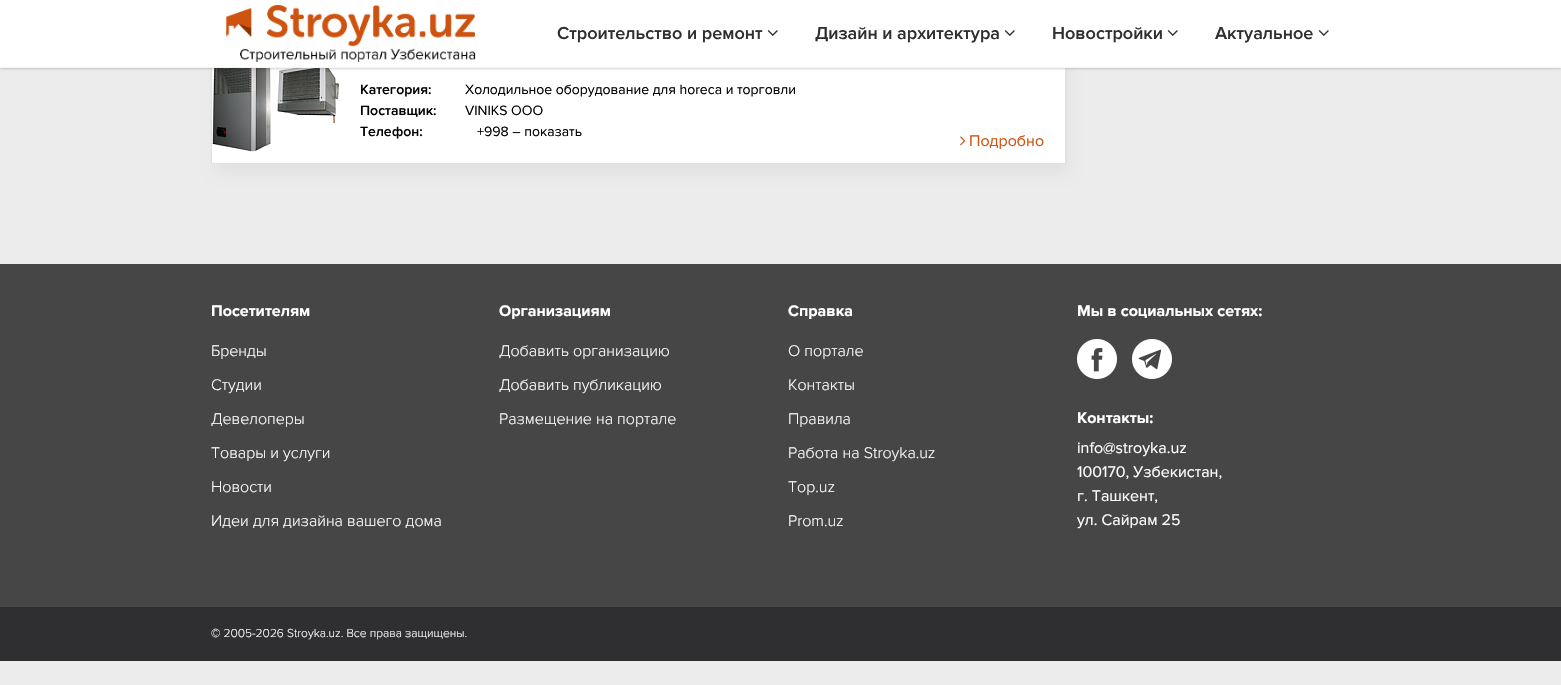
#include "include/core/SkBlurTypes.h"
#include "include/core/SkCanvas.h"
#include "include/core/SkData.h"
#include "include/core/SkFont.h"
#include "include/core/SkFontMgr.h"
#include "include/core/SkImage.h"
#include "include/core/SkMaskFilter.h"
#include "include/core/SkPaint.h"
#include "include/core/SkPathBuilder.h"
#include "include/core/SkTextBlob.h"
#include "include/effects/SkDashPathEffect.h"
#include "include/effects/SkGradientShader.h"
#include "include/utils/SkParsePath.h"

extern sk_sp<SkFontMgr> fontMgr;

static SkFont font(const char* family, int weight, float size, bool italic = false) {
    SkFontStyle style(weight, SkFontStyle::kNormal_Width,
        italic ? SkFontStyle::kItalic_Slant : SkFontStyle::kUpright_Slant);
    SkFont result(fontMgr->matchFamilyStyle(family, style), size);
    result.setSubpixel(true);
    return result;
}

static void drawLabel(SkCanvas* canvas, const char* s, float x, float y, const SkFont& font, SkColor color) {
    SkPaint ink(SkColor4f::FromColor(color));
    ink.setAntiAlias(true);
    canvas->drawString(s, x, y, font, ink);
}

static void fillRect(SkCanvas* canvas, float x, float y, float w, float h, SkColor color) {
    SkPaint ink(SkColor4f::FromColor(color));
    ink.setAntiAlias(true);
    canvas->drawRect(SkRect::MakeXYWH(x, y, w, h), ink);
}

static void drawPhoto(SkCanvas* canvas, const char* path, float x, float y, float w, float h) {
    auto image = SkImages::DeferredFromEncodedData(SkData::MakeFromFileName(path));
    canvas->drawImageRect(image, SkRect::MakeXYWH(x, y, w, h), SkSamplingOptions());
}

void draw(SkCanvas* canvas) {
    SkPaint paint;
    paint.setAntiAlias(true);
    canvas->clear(0xFFECECED);
    paint.setColor(0xFFE0E0E0);
    paint.setMaskFilter(SkMaskFilter::MakeBlur(kNormal_SkBlurStyle, 7));
    canvas->drawRect(SkRect::MakeXYWH(217, 46, 851, 126), paint);
    paint.setMaskFilter(nullptr);
    fillRect(canvas, 212, 68, 853, 95, 0xFFFFFFFF);
    paint.setStroke(true);
    paint.setStrokeWidth(1);
    canvas->drawRect(SkRect::MakeXYWH(211.5f, 34.5f, 854, 129), paint);
    drawPhoto(canvas, "assets/img3.png", 212, 68, 128, 84);
    paint.setStroke(false);
    paint.setColor(0x4D000000);
    paint.setMaskFilter(SkMaskFilter::MakeBlur(kNormal_SkBlurStyle, 1.5f));
    canvas->drawRect(SkRect::MakeXYWH(0, 0, 1561, 68), paint);
    paint.setMaskFilter(nullptr);
    fillRect(canvas, 0, 0, 1561, 67, 0xFFFFFFFF);
    fillRect(canvas, 0, 67, 1561, 1, 0xFFF4F5F7);
    drawPhoto(canvas, "assets/img1.png", 225, 5, 251, 57);
    SkFont font1 = font("Proxima Nova", 600, 18);
    drawLabel(canvas, "Строительство и ремонт", 557, 39, font1, 0xFF2F2F31);
    drawPhoto(canvas, "assets/img2.png", 767, 30, 11, 6);
    drawLabel(canvas, "Дизайн и архитектура", 815, 39, font1, 0xFF2F2F31);
    drawPhoto(canvas, "assets/img2.png", 1004, 30, 11, 6);
    drawLabel(canvas, "Новостройки", 1052, 39, font1, 0xFF2F2F31);
    drawPhoto(canvas, "assets/img2.png", 1167, 30, 11, 6);
    drawLabel(canvas, "Актуальное", 1215, 39, font1, 0xFF2F2F31);
    drawPhoto(canvas, "assets/img2.png", 1318, 30, 11, 6);
    SkFont font2 = font("Proxima Nova", 600, 14);
    drawLabel(canvas, "Категория:", 360, 94, font2, 0xFF010203);
    SkFont font3 = font("Proxima Nova", 400, 14);
    drawLabel(canvas, "Холодильное оборудование для horeca и торговли", 465, 94, font3, 0xFF010203);
    drawLabel(canvas, "Поставщик:", 360, 115, font2, 0xFF010203);
    drawLabel(canvas, "VINIKS OOO", 465, 115, font3, 0xFF010203);
    drawLabel(canvas, "Телефон:", 360, 136, font2, 0xFF010203);
    drawLabel(canvas, "+998 – показать", 477, 136, font3, 0xFF010203);
    drawPhoto(canvas, "assets/img4.png", 960, 136, 6, 10);
    SkFont font4 = font("Proxima Nova", 400, 16);
    drawLabel(canvas, "Подробно", 969, 146, font4, 0xFFCE5310);
    fillRect(canvas, 0, 264, 1561, 343, 0xFF464646);
    SkFont font5 = font("Proxima Nova", 700, 16);
    drawLabel(canvas, "Посетителям", 211, 316, font5, 0xFFFFFFFF);
    SkFont font6 = font("Proxima Nova", 300, 16);
    drawLabel(canvas, "Бренды", 211, 356, font6, 0xFFFFFFFF);
    drawLabel(canvas, "Студии", 211, 390, font6, 0xFFFFFFFF);
    drawLabel(canvas, "Девелоперы", 211, 424, font6, 0xFFFFFFFF);
    drawLabel(canvas, "Товары и услуги", 211, 458, font6, 0xFFFFFFFF);
    drawLabel(canvas, "Новости", 211, 492, font6, 0xFFFFFFFF);
    drawLabel(canvas, "Идеи для дизайна вашего дома", 211, 526, font6, 0xFFFFFFFF);
    drawLabel(canvas, "Организациям", 499, 316, font5, 0xFFFFFFFF);
    drawLabel(canvas, "Добавить организацию", 499, 356, font6, 0xFFFFFFFF);
    drawLabel(canvas, "Добавить публикацию", 499, 390, font6, 0xFFFFFFFF);
    drawLabel(canvas, "Размещение на портале", 499, 424, font6, 0xFFFFFFFF);
    drawLabel(canvas, "Справка", 788, 316, font5, 0xFFFFFFFF);
    drawLabel(canvas, "О портале", 788, 356, font6, 0xFFFFFFFF);
    drawLabel(canvas, "Контакты", 788, 390, font6, 0xFFFFFFFF);
    drawLabel(canvas, "Правила", 788, 424, font6, 0xFFFFFFFF);
    drawLabel(canvas, "Работа на Stroyka.uz", 788, 458, font6, 0xFFFFFFFF);
    drawLabel(canvas, "Top.uz", 788, 492, font6, 0xFFFFFFFF);
    drawLabel(canvas, "Prom.uz", 788, 526, font6, 0xFFFFFFFF);
    drawLabel(canvas, "Мы в социальных сетях:", 1077, 316, font5, 0xFFFFFFFF);
    drawPhoto(canvas, "assets/img5.png", 1077, 339, 40, 40);
    drawPhoto(canvas, "assets/img6.png", 1132, 339, 40, 40);
    drawLabel(canvas, "Контакты:", 1077, 423, font5, 0xFFFFFFFF);
    drawLabel(canvas, "info@stroyka.uz", 1077, 453, font4, 0xFFFFFFFF);
    drawLabel(canvas, "100170, Узбекистан,", 1077, 477, font4, 0xFFFFFFFF);
    drawLabel(canvas, "г. Ташкент,", 1077, 501, font4, 0xFFFFFFFF);
    drawLabel(canvas, "ул. Сайрам 25", 1077, 525, font4, 0xFFFFFFFF);
    fillRect(canvas, 0, 607, 1561, 54, 0xFF2F2F31);
    SkFont font7 = font("Proxima Nova", 300, 12);
    drawLabel(canvas, "© 2005-2026 Stroyka.uz. Все права защищены.", 211, 637, font7, 0xFFFFFFFF);
}
